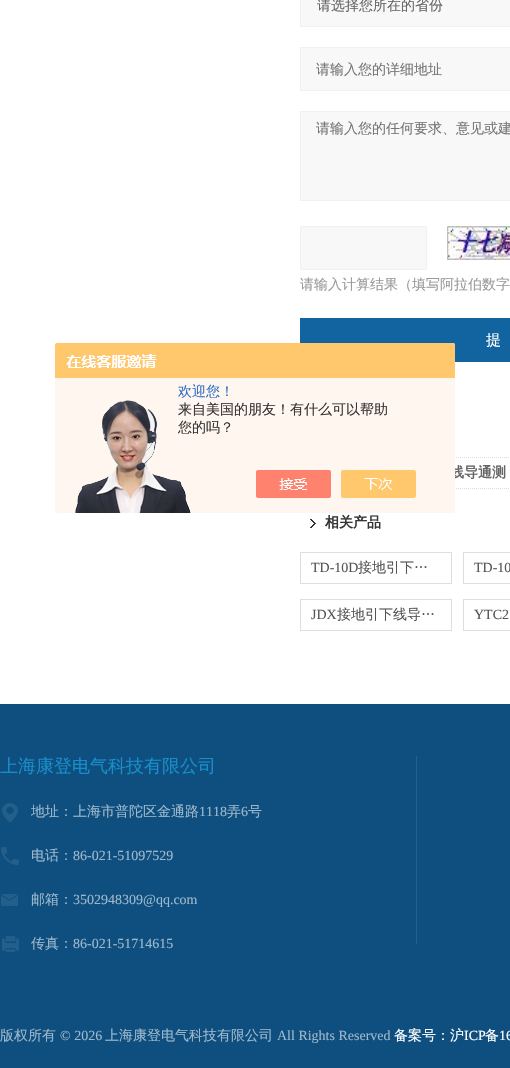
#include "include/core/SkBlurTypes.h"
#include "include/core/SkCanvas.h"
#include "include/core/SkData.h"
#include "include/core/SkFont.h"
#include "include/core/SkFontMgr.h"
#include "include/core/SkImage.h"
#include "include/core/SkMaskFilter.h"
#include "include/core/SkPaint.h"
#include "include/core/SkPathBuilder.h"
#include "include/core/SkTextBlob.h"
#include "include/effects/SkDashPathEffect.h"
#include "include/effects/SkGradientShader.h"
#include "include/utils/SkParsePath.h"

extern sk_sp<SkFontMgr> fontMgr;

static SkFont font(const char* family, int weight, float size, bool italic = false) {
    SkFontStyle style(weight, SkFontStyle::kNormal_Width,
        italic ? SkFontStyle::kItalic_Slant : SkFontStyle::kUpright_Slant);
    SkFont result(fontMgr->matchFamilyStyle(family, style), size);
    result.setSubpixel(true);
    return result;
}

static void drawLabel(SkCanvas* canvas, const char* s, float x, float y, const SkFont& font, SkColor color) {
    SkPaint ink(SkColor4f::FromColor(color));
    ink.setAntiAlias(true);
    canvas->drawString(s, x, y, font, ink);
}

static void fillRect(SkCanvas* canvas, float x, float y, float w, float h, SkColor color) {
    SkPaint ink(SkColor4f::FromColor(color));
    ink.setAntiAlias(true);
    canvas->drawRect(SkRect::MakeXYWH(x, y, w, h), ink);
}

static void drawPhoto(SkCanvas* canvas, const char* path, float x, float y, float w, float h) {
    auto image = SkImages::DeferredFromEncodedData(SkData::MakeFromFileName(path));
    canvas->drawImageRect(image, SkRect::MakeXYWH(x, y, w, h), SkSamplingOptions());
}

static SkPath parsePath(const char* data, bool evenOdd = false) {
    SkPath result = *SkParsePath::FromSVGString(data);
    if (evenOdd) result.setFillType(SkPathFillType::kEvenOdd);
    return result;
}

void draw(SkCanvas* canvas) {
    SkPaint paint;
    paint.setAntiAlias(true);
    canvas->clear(0xFFFFFFFF);
    fillRect(canvas, 300, 318, 210, 44, 0xFF1264A0);
    paint.setStroke(true);
    paint.setStrokeWidth(1);
    paint.setColor(0xFFDDDDDD);
    paint.setPathEffect(SkDashPathEffect::Make({{1, 1}}, 0));
    canvas->drawPath(parsePath("M300 457.5H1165"), paint);
    paint.setPathEffect(nullptr);
    paint.setPathEffect(SkDashPathEffect::Make({{1, 1}}, 0));
    canvas->drawPath(parsePath("M300 488.5H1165"), paint);
    paint.setPathEffect(nullptr);
    SkFont font1 = font("WenQuanYi Zen Hei", 700, 14);
    drawLabel(canvas, "线导通测", 450, 477, font1, 0xFF666666);
    drawPhoto(canvas, "assets/img1.png", 55, 343, 400, 170);
    SkFont font2 = font("WenQuanYi Zen Hei", 500, 14);
    drawLabel(canvas, "欢迎您！", 178, 396, font2, 0xFF2E6EC6);
    drawLabel(canvas, "来自美国的朋友！有什么可以帮助", 178, 414, font2, 0xFF353535);
    drawLabel(canvas, "您的吗？", 178, 432, font2, 0xFF353535);
    paint.setStroke(false);
    paint.setColor(0xFFF8F8F8);
    canvas->drawRect(SkRect::MakeXYWH(300.5f, -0.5f, 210, 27), paint);
    paint.setStroke(true);
    paint.setColor(0xFFF1F1F1);
    canvas->drawRect(SkRect::MakeXYWH(300.5f, -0.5f, 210, 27), paint);
    drawLabel(canvas, "请选择您所在的省份", 317, 10, font2, 0xFF666666);
    paint.setStroke(false);
    paint.setColor(0xFFF8F8F8);
    canvas->drawRect(SkRect::MakeXYWH(300.5f, 47.5f, 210, 43), paint);
    paint.setStroke(true);
    paint.setColor(0xFFF1F1F1);
    canvas->drawRect(SkRect::MakeXYWH(300.5f, 47.5f, 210, 43), paint);
    drawLabel(canvas, "请输入您的详细地址", 316, 74, font2, 0xFF757575);
    paint.setStroke(false);
    paint.setColor(0xFFF8F8F8);
    canvas->drawRect(SkRect::MakeXYWH(300.5f, 111.5f, 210, 89), paint);
    paint.setStroke(true);
    paint.setColor(0xFFF1F1F1);
    canvas->drawRect(SkRect::MakeXYWH(300.5f, 111.5f, 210, 89), paint);
    drawLabel(canvas, "请输入您的任何要求、意见或建", 316, 133, font2, 0xFF757575);
    paint.setStroke(false);
    paint.setColor(0xFFF8F8F8);
    canvas->drawRect(SkRect::MakeXYWH(300.5f, 226.5f, 126, 43), paint);
    paint.setStroke(true);
    paint.setColor(0xFFF1F1F1);
    canvas->drawRect(SkRect::MakeXYWH(300.5f, 226.5f, 126, 43), paint);
    drawPhoto(canvas, "assets/img2.png", 447, 226, 63, 34);
    drawLabel(canvas, "请输入计算结果（填写阿拉伯数字", 300, 289, font2, 0xFF999999);
    SkFont font3 = font("WenQuanYi Zen Hei", 500, 15);
    drawLabel(canvas, "提", 486, 345, font3, 0xFFFFFFFF);
    drawPhoto(canvas, "assets/img3.png", 310, 519, 6, 9);
    drawLabel(canvas, "相关产品", 325, 527, font1, 0xFF353535);
    paint.setColor(0xFFDEDEDE);
    canvas->drawRect(SkRect::MakeXYWH(300.5f, 552.5f, 151, 31), paint);
    SkFont font4 = font("Liberation Serif", 400, 14);
    drawLabel(canvas, "TD-10D", 311, 572, font4, 0xFF555555);
    drawLabel(canvas, "接地引下…", 358, 572, font2, 0xFF555555);
    canvas->drawRect(SkRect::MakeXYWH(463.5f, 552.5f, 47, 31), paint);
    drawLabel(canvas, "TD-10", 474, 572, font4, 0xFF555555);
    canvas->drawRect(SkRect::MakeXYWH(300.5f, 599.5f, 151, 31), paint);
    drawLabel(canvas, "JDX", 311, 619, font4, 0xFF555555);
    drawLabel(canvas, "接地引下线导…", 337, 619, font2, 0xFF555555);
    canvas->drawRect(SkRect::MakeXYWH(463.5f, 599.5f, 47, 31), paint);
    drawLabel(canvas, "YTC2", 474, 619, font4, 0xFF555555);
    fillRect(canvas, 0, 704, 510, 364, 0xFF0E4F80);
    SkFont font5 = font("WenQuanYi Zen Hei", 500, 18);
    drawLabel(canvas, "上海康登电气科技有限公司", 0, 772, font5, 0xFF178ECA);
    drawPhoto(canvas, "assets/img4.png", 2, 803, 16, 19);
    drawLabel(canvas, "地址：上海市普陀区金通路", 31, 816, font2, 0xFF9FB9CC);
    drawLabel(canvas, "1118", 199, 816, font4, 0xFF9FB9CC);
    drawLabel(canvas, "弄", 227, 816, font2, 0xFF9FB9CC);
    drawLabel(canvas, "6", 241, 816, font4, 0xFF9FB9CC);
    drawLabel(canvas, "号", 248, 816, font2, 0xFF9FB9CC);
    drawPhoto(canvas, "assets/img5.png", 1, 847, 18, 18);
    drawLabel(canvas, "电话：", 31, 860, font2, 0xFF9FB9CC);
    drawLabel(canvas, "86-021-51097529", 73, 860, font4, 0xFF9FB9CC);
    drawPhoto(canvas, "assets/img6.png", 1, 894, 17, 12);
    drawLabel(canvas, "邮箱：", 31, 904, font2, 0xFF9FB9CC);
    drawLabel(canvas, "3502948309@qq.com", 73, 904, font4, 0xFF9FB9CC);
    drawPhoto(canvas, "assets/img7.png", 2, 936, 17, 16);
    drawLabel(canvas, "传真：", 31, 948, font2, 0xFF9FB9CC);
    drawLabel(canvas, "86-021-51714615", 73, 948, font4, 0xFF9FB9CC);
    fillRect(canvas, 416, 756, 1, 188, 0xFF26618D);
    drawLabel(canvas, "版权所有", 0, 1040, font2, 0xFF9FB9CC);
    drawLabel(canvas, "© 2026", 60, 1040, font4, 0xFF9FB9CC);
    drawLabel(canvas, "上海康登电气科技有限公司", 105, 1040, font2, 0xFF9FB9CC);
    drawLabel(canvas, "All Rights Reserved", 277, 1040, font4, 0xFF9FB9CC);
    drawLabel(canvas, "备案号：沪", 394, 1040, font2, 0xFFFFFFFF);
    drawLabel(canvas, "ICP", 464, 1040, font4, 0xFFFFFFFF);
    drawLabel(canvas, "备", 485, 1040, font2, 0xFFFFFFFF);
    drawLabel(canvas, "16", 499, 1040, font4, 0xFFFFFFFF);
}
